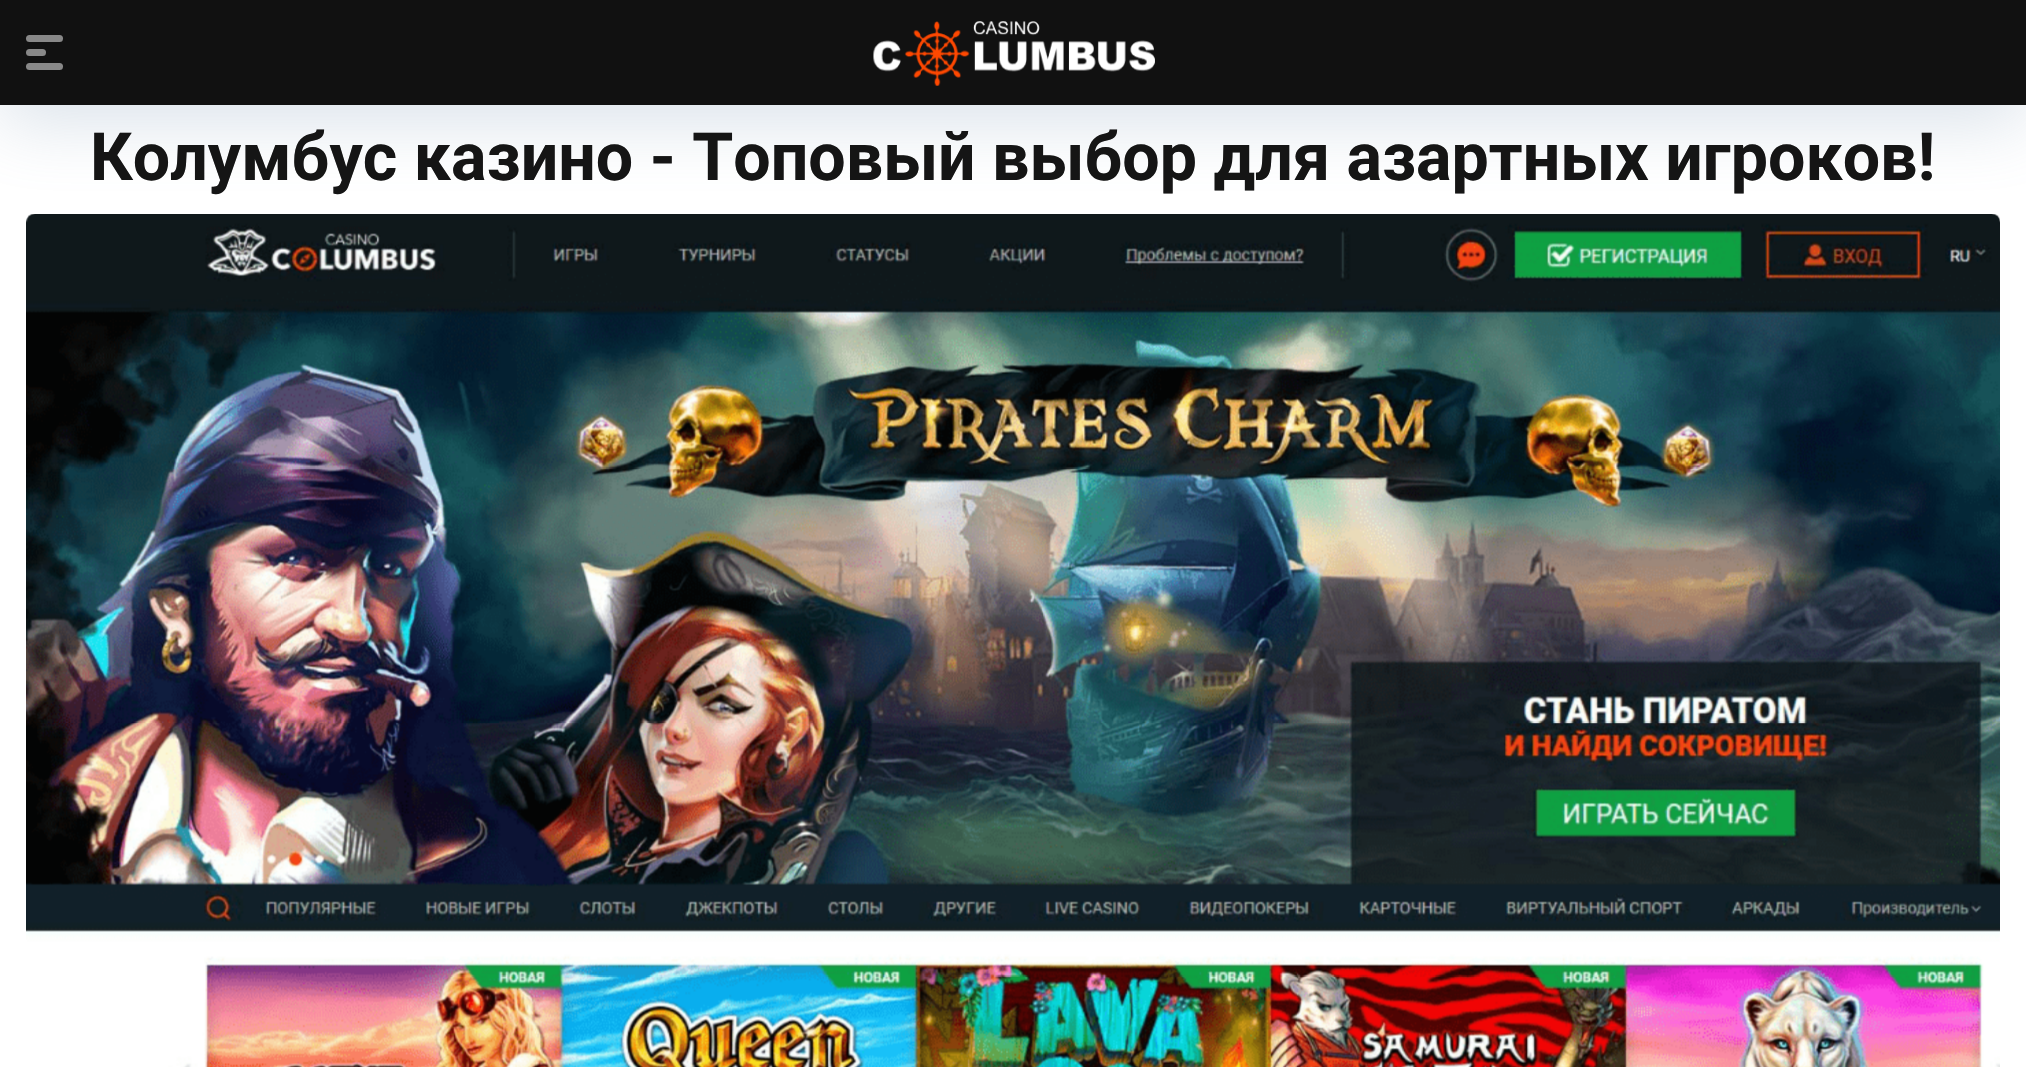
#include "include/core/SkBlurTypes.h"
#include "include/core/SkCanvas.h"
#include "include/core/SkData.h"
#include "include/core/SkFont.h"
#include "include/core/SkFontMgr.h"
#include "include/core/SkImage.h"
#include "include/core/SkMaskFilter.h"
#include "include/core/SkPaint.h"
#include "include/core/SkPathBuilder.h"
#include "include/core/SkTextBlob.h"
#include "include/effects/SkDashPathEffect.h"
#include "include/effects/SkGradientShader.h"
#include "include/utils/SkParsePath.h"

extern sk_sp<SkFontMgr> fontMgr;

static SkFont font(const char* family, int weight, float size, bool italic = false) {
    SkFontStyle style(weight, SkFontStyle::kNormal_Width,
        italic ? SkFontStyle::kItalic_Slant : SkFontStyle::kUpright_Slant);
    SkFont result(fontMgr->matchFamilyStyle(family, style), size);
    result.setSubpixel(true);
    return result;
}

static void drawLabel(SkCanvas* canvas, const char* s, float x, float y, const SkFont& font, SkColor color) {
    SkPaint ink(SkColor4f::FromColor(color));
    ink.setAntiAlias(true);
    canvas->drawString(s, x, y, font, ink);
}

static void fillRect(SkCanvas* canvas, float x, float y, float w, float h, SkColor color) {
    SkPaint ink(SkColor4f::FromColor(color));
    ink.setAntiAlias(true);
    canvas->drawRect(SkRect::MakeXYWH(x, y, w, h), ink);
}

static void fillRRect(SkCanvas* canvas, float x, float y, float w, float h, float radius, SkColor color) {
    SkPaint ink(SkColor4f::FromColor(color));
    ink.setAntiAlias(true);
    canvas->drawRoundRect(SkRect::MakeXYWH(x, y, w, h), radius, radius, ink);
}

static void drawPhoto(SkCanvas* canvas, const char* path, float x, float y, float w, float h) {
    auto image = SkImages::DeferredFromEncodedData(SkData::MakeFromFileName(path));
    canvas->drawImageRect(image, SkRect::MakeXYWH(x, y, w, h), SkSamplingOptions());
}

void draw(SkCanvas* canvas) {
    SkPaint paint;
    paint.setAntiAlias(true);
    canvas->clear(0xFFFFFFFF);
    drawPhoto(canvas, "assets/img2.png", 26, 214, 1974, 853);
    paint.setColor(0x406D8DAD);
    paint.setMaskFilter(SkMaskFilter::MakeBlur(kNormal_SkBlurStyle, 35));
    canvas->drawRect(SkRect::MakeXYWH(0, 18, 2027, 105), paint);
    paint.setMaskFilter(nullptr);
    fillRect(canvas, 0, 0, 2026, 105, 0xFF111111);
    fillRRect(canvas, 26, 35, 37, 7, 3.5f, 0xFF888888);
    fillRRect(canvas, 26, 49, 20, 7, 3.5f, 0xFF888888);
    fillRRect(canvas, 26, 63, 37, 7, 3.5f, 0xFF888888);
    drawPhoto(canvas, "assets/img1.png", 873, 21, 282, 65);
    SkFont font1 = font("Roboto", 700, 66.3f);
    drawLabel(canvas, "Колумбус казино - Топовый выбор для азартных игроков!", 90, 180, font1, 0xFF151515);
}
